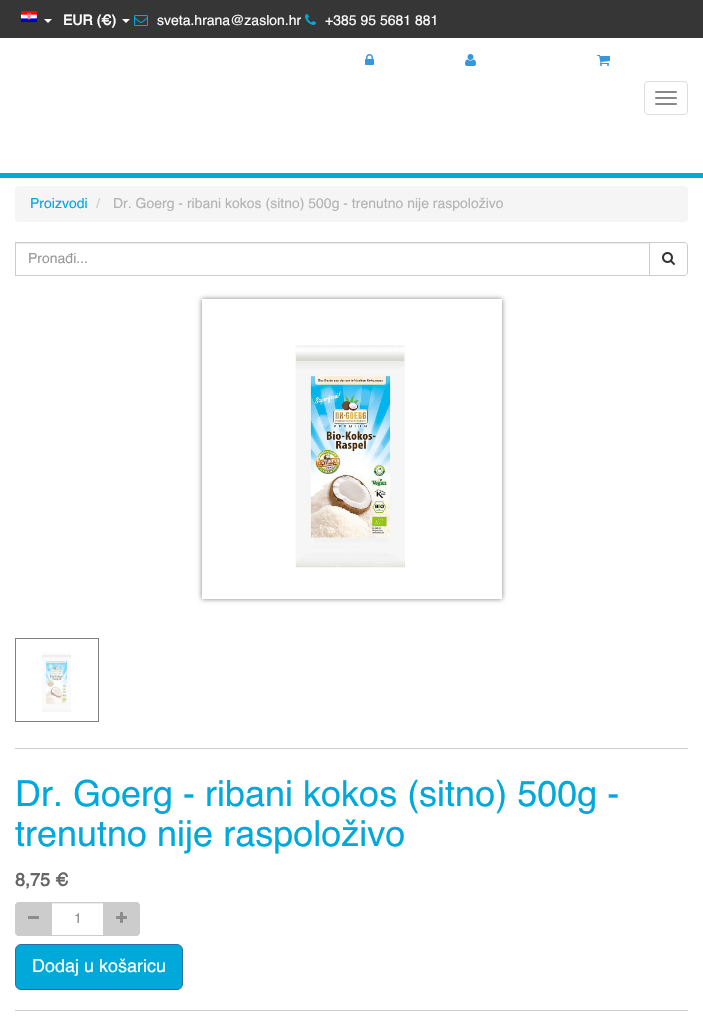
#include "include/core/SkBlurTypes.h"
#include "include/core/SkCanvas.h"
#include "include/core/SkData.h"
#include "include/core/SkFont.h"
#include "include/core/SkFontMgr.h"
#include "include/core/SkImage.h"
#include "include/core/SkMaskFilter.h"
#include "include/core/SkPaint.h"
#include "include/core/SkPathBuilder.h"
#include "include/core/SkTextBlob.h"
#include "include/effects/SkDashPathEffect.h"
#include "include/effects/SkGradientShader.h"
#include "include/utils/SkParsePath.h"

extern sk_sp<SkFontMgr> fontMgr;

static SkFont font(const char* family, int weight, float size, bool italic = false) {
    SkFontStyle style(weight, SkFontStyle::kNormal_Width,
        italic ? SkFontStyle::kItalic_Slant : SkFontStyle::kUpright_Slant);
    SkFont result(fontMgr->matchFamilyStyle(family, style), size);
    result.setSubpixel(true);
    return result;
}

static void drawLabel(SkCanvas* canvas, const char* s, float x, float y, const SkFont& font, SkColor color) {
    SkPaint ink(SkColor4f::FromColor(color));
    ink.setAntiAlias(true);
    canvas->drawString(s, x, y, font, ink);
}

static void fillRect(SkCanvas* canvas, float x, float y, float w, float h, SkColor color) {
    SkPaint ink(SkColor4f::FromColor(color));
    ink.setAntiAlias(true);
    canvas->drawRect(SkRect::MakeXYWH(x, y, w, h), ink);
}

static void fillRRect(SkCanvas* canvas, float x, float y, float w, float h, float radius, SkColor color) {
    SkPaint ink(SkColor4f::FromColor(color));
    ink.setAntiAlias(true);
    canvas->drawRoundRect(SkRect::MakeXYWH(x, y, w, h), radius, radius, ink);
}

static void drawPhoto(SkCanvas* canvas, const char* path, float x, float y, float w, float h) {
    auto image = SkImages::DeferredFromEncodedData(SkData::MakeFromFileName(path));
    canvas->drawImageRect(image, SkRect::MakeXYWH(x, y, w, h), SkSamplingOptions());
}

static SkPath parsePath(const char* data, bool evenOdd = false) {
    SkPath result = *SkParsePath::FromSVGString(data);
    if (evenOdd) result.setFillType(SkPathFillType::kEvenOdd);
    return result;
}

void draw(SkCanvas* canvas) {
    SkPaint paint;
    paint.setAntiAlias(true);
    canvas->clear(0xFFFFFFFF);
    fillRect(canvas, 0, 173, 703, 5, 0xFF00A9DA);
    fillRect(canvas, 0, 0, 703, 38, 0xFF363636);
    drawPhoto(canvas, "assets/img1.png", 21, 11, 16, 11);
    paint.setColor(0xFFFFFFFF);
    canvas->drawPath(parsePath("M44 19H52L48 23Z"), paint);
    SkFont font1 = font("Helvetica", 700, 14);
    drawLabel(canvas, "EUR (€)", 63, 25, font1, 0xFFFFFFFF);
    canvas->drawPath(parsePath("M122 19H130L126 23Z"), paint);
    drawPhoto(canvas, "assets/img2.png", 134, 15, 14, 11);
    SkFont font2 = font("Helvetica", 400, 14);
    drawLabel(canvas, "sveta.hrana@zaslon.hr", 157, 25, font2, 0xFFFFFFFF);
    drawPhoto(canvas, "assets/img3.png", 305, 14, 11, 11);
    drawLabel(canvas, "+385 95 5681 881", 325, 25, font2, 0xFFFFFFFF);
    drawPhoto(canvas, "assets/img4.png", 365, 54, 9, 11);
    drawPhoto(canvas, "assets/img5.png", 465, 54, 11, 12);
    drawPhoto(canvas, "assets/img6.png", 597, 55, 13, 11);
    paint.setStroke(true);
    paint.setStrokeWidth(1);
    paint.setColor(0xFFDDDDDD);
    canvas->drawRoundRect(SkRect::MakeXYWH(644.5f, 81.5f, 43, 33), 3.5f, 3.5f, paint);
    fillRRect(canvas, 655, 91, 22, 2, 1, 0xFF888888);
    fillRRect(canvas, 655, 97, 22, 2, 1, 0xFF888888);
    fillRRect(canvas, 655, 103, 22, 2, 1, 0xFF888888);
    fillRRect(canvas, 15, 186, 673, 36, 4, 0xFFF5F5F5);
    drawLabel(canvas, "Proizvodi", 30, 208, font2, 0xFF00A9DA);
    drawLabel(canvas, "/", 96, 208, font2, 0xFFCCCCCC);
    drawLabel(canvas, "Dr. Goerg - ribani kokos (sitno) 500g - trenutno nije raspoloživo", 113, 208, font2, 0xFFB3B3B3);
    fillRect(canvas, 16, 243, 633, 1, 0xFFECECEC);
    paint.setColor(0xFFCCCCCC);
    canvas->drawRect(SkRect::MakeXYWH(15.5f, 242.5f, 634, 33), paint);
    drawLabel(canvas, "Pronađi...", 28, 263, font2, 0xFF999999);
    paint.setStroke(false);
    paint.setColor(0xFFFFFFFF);
    canvas->drawPath(parsePath("M649.5 242.5H684C686 242.5 687.5 244 687.5 246V272C687.5 274 686 275.5 684 275.5H649.5Z"), paint);
    paint.setStroke(true);
    paint.setColor(0xFFCCCCCC);
    canvas->drawPath(parsePath("M649.5 242.5H684C686 242.5 687.5 244 687.5 246V272C687.5 274 686 275.5 684 275.5H649.5Z"), paint);
    drawPhoto(canvas, "assets/img7.png", 662, 252, 13, 13);
    canvas->save();
    canvas->clipPath(parsePath("M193 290H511V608H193ZM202 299H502V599H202Z", true), true);
    paint.setStroke(false);
    paint.setColor(0x80000000);
    paint.setMaskFilter(SkMaskFilter::MakeBlur(kNormal_SkBlurStyle, 2.5f));
    canvas->drawRect(SkRect::MakeXYWH(202, 299, 300, 300), paint);
    paint.setMaskFilter(nullptr);
    canvas->restore();
    drawPhoto(canvas, "assets/img8.png", 295, 345, 111, 223);
    paint.setStroke(true);
    paint.setColor(0xFF808080);
    canvas->drawRect(SkRect::MakeXYWH(15.5f, 638.5f, 83, 83), paint);
    drawPhoto(canvas, "assets/img9.png", 42, 652, 29, 60);
    fillRect(canvas, 15, 748, 673, 1, 0xFFCCCCCC);
    SkFont font3 = font("Helvetica", 400, 36);
    drawLabel(canvas, "Dr. Goerg - ribani kokos (sitno) 500g -", 15, 806, font3, 0xFF00A9DA);
    drawLabel(canvas, "trenutno nije raspoloživo", 15, 846, font3, 0xFF00A9DA);
    SkFont font4 = font("Helvetica", 700, 18);
    drawLabel(canvas, "8,75 €", 15, 886, font4, 0xFF666666);
    paint.setStroke(false);
    paint.setColor(0xFFCCCCCC);
    canvas->drawPath(parsePath("M19 902H51V936H19C17 936 15 934 15 932V906C15 904 17 902 19 902Z"), paint);
    canvas->drawPath(parsePath("M19 902H51V936H19C17 936 15 934 15 932V906C15 904 17 902 19 902ZM19 903H51V935H19C17.5 935 16 933.5 16 932V906C16 904.5 17.5 903 19 903Z", true), paint);
    fillRect(canvas, 28, 916, 11, 3, 0xFF8C8C8C);
    fillRect(canvas, 52, 903, 51, 1, 0xFFECECEC);
    paint.setStroke(true);
    canvas->drawRect(SkRect::MakeXYWH(51.5f, 902.5f, 52, 33), paint);
    drawLabel(canvas, "1", 74, 923, font2, 0xFF8C8C8C);
    paint.setStroke(false);
    canvas->drawPath(parsePath("M104 902H136C138 902 140 904 140 906V932C140 934 138 936 136 936H104Z"), paint);
    canvas->drawPath(parsePath("M104 902H136C138 902 140 904 140 906V932C140 934 138 936 136 936H104ZM104 903H136C137.5 903 139 904.5 139 906V932C139 933.5 137.5 935 136 935H104Z", true), paint);
    drawPhoto(canvas, "assets/img10.png", 116, 912, 11, 11);
    paint.setColor(0xFF00A9DA);
    canvas->drawRoundRect(SkRect::MakeXYWH(15.5f, 944.5f, 167, 45), 5.5f, 5.5f, paint);
    paint.setStroke(true);
    paint.setColor(0xFF2E6DA4);
    canvas->drawRoundRect(SkRect::MakeXYWH(15.5f, 944.5f, 167, 45), 5.5f, 5.5f, paint);
    SkFont font5 = font("Helvetica", 400, 18);
    drawLabel(canvas, "Dodaj u košaricu", 32, 972, font5, 0xFFFFFFFF);
    fillRect(canvas, 15, 1010, 673, 1, 0xFFCCCCCC);
}
